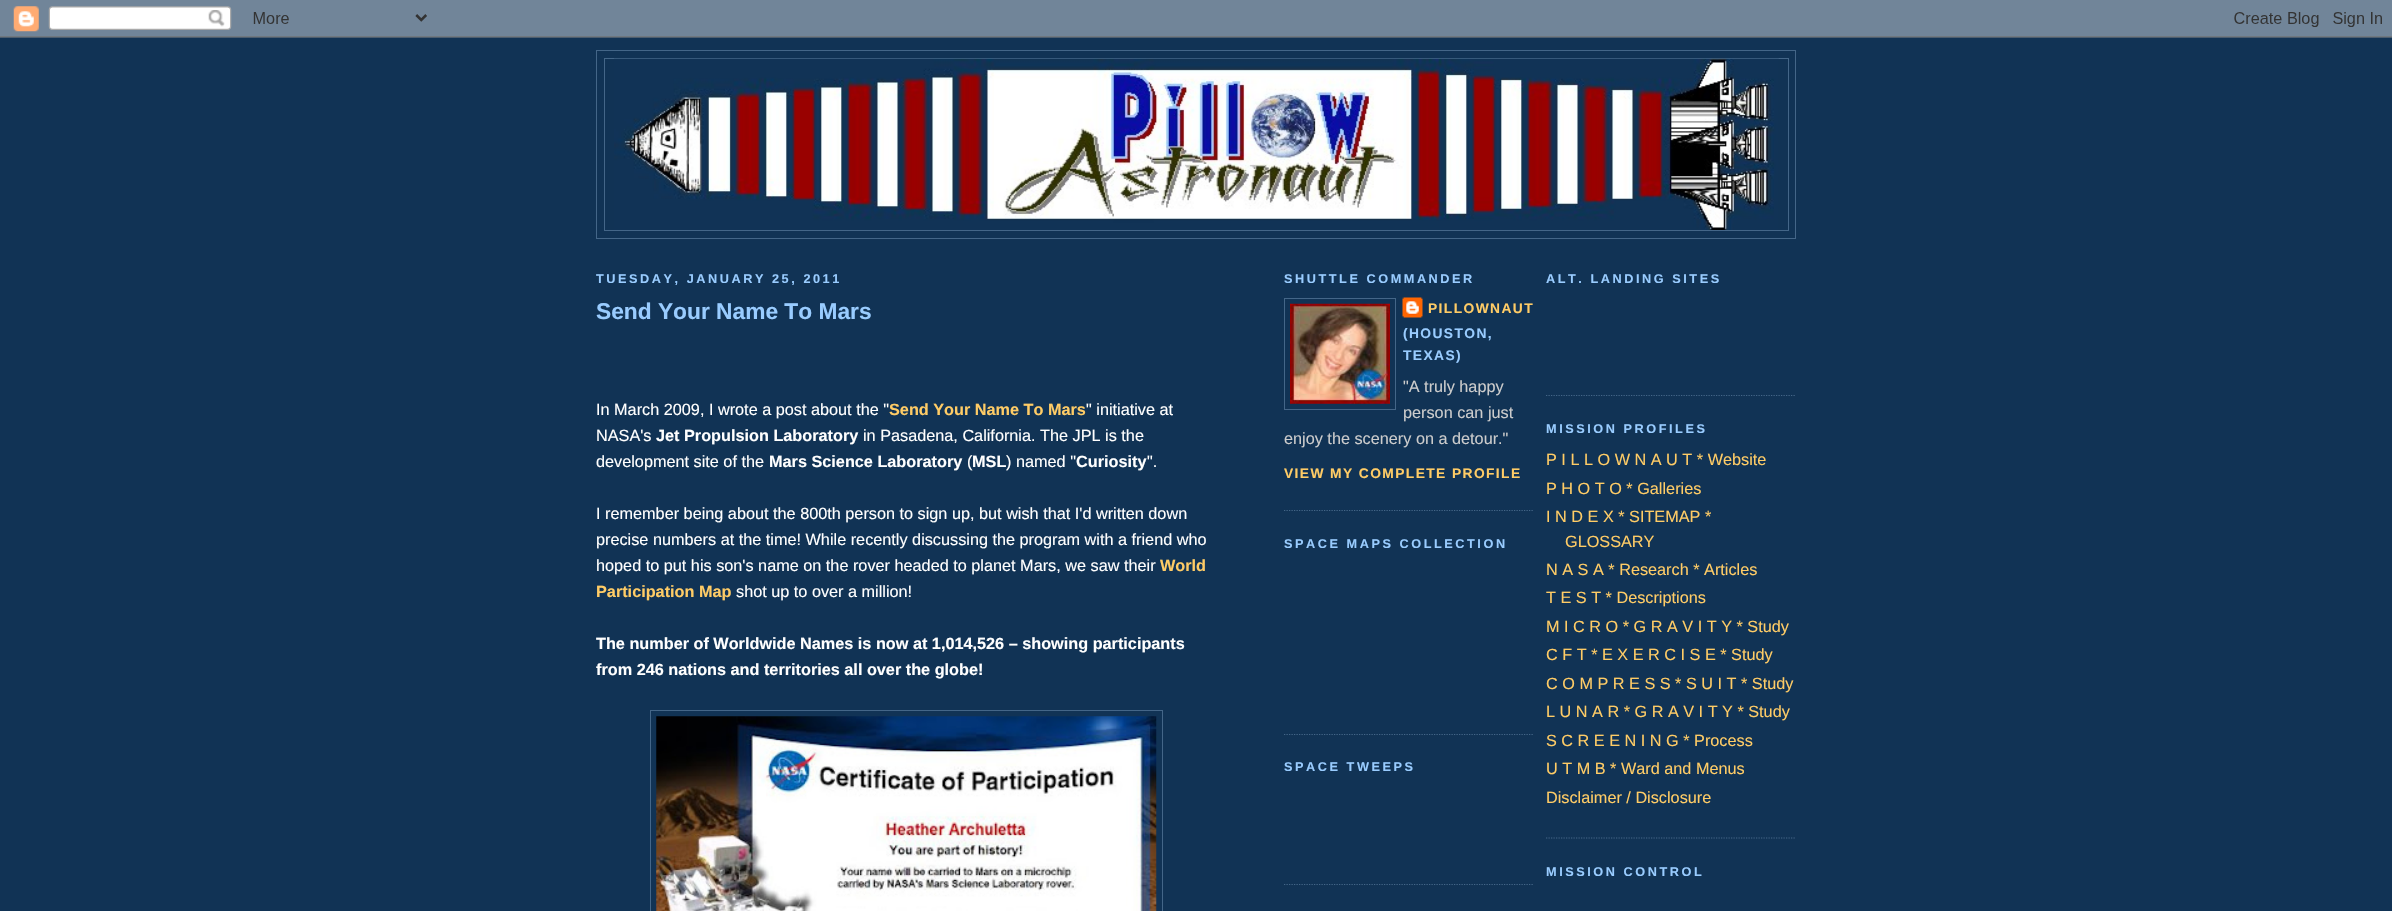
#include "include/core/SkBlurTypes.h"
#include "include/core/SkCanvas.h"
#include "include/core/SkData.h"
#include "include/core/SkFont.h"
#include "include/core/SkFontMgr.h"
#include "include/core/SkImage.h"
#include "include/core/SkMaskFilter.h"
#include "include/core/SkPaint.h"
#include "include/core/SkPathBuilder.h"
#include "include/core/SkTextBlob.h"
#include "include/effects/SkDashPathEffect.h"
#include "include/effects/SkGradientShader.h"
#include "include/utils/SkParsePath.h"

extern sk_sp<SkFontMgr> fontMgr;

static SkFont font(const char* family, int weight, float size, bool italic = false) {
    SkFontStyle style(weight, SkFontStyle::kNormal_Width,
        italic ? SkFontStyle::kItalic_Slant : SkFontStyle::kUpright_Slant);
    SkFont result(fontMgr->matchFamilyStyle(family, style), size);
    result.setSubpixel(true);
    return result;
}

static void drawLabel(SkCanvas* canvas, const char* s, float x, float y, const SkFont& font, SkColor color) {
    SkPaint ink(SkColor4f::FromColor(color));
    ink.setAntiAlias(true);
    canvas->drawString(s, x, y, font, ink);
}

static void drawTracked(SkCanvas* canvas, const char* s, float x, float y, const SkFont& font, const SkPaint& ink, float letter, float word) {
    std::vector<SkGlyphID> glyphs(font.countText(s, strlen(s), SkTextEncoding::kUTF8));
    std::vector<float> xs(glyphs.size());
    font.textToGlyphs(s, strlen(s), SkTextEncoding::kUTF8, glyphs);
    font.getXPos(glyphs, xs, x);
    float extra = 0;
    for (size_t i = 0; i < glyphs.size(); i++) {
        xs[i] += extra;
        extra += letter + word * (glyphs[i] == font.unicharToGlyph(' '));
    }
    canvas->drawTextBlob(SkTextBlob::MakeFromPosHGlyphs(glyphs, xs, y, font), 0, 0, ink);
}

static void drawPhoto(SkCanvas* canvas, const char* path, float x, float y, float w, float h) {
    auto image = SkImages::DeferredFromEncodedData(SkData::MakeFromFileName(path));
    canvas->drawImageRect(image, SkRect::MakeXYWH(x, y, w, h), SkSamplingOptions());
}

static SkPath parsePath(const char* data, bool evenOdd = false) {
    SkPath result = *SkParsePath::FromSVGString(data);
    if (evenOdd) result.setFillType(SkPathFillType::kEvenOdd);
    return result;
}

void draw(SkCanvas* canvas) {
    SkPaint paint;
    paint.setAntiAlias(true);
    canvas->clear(0xFF113355);
    drawPhoto(canvas, "assets/img1.png", 0, 0, 2392, 38);
    paint.setStroke(true);
    paint.setStrokeWidth(1);
    paint.setColor(0xFF446688);
    canvas->drawRect(SkRect::MakeXYWH(596.5f, 50.5f, 1199, 188), paint);
    canvas->drawRect(SkRect::MakeXYWH(604.5f, 58.5f, 1184, 172), paint);
    drawPhoto(canvas, "assets/img2.png", 614, 58, 1165, 172);
    SkFont font1 = font("Liberation Sans", 700, 12.7f);
    paint.setStroke(false);
    paint.setColor(0xFF99CCFF);
    drawTracked(canvas, "TUESDAY, JANUARY 25, 2011", 596, 283, font1, paint, 2.55f, 0);
    SkFont font2 = font("Liberation Sans", 700, 22.75f);
    drawLabel(canvas, "Send Your Name To Mars", 596, 319, font2, 0xFF99CCFF);
    SkFont font3 = font("Liberation Sans", 400, 16.25f);
    drawLabel(canvas, "In March 2009, I wrote a post about the \"", 596, 415, font3, 0xFFFFFFFF);
    SkFont font4 = font("Liberation Sans", 700, 16.25f);
    drawLabel(canvas, "Send Your Name To Mars", 889, 415, font4, 0xFFFFCC66);
    drawLabel(canvas, "\" initiative at", 1086, 415, font3, 0xFFFFFFFF);
    drawLabel(canvas, "NASA's", 596, 441, font3, 0xFFFFFFFF);
    drawLabel(canvas, "Jet Propulsion Laboratory", 656, 441, font4, 0xFFFFFFFF);
    drawLabel(canvas, "in Pasadena, California. The JPL is the", 863, 441, font3, 0xFFFFFFFF);
    drawLabel(canvas, "development site of the", 596, 467, font3, 0xFFFFFFFF);
    drawLabel(canvas, "Mars Science Laboratory", 769, 467, font4, 0xFFFFFFFF);
    drawLabel(canvas, "(", 967, 467, font3, 0xFFFFFFFF);
    drawLabel(canvas, "MSL", 972, 467, font4, 0xFFFFFFFF);
    drawLabel(canvas, ") named \"", 1006, 467, font3, 0xFFFFFFFF);
    drawLabel(canvas, "Curiosity", 1076, 467, font4, 0xFFFFFFFF);
    drawLabel(canvas, "\".", 1147, 467, font3, 0xFFFFFFFF);
    drawLabel(canvas, "I remember being about the 800th person to sign up, but wish that I'd written down", 596, 519, font3, 0xFFFFFFFF);
    drawLabel(canvas, "precise numbers at the time! While recently discussing the program with a friend who", 596, 545, font3, 0xFFFFFFFF);
    drawLabel(canvas, "hoped to put his son's name on the rover headed to planet Mars, we saw their", 596, 571, font3, 0xFFFFFFFF);
    drawLabel(canvas, "World", 1160, 571, font4, 0xFFFFCC66);
    drawLabel(canvas, "Participation Map", 596, 597, font4, 0xFFFFCC66);
    drawLabel(canvas, "shot up to over a million!", 736, 597, font3, 0xFFFFFFFF);
    drawLabel(canvas, "The number of Worldwide Names is now at 1,014,526 – showing participants", 596, 649, font4, 0xFFFFFFFF);
    drawLabel(canvas, "from 246 nations and territories all over the globe!", 596, 675, font4, 0xFFFFFFFF);
    paint.setStroke(true);
    paint.setColor(0xFF446688);
    canvas->drawRect(SkRect::MakeXYWH(650.5f, 710.5f, 512, 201), paint);
    drawPhoto(canvas, "assets/img3.png", 656, 716, 501, 195);
    paint.setStrokeWidth(1.2f);
    paint.setPathEffect(SkDashPathEffect::Make({{1.25f, 1.25f}}, 0));
    canvas->drawPath(parsePath("M1284 510.5H1534"), paint);
    paint.setPathEffect(nullptr);
    paint.setStroke(false);
    paint.setColor(0xFF99CCFF);
    drawTracked(canvas, "SHUTTLE COMMANDER", 1284, 283, font1, paint, 2.55f, 0);
    paint.setStroke(true);
    paint.setStrokeWidth(1);
    paint.setColor(0xFF446688);
    canvas->drawRect(SkRect::MakeXYWH(1284.5f, 298.5f, 111, 111), paint);
    drawPhoto(canvas, "assets/img4.png", 1290, 303, 100, 101);
    drawPhoto(canvas, "assets/img5.png", 1402, 297, 21, 21);
    SkFont font5 = font("Liberation Sans", 700, 13.8f);
    paint.setStroke(false);
    paint.setColor(0xFFFFCC66);
    drawTracked(canvas, "PILLOWNAUT", 1428, 313, font5, paint, 1.4f, 0);
    paint.setColor(0xFF99CCFF);
    drawTracked(canvas, "(HOUSTON,", 1403, 338, font5, paint, 1.4f, 0);
    drawTracked(canvas, "TEXAS)", 1403, 360, font5, paint, 1.4f, 0);
    drawLabel(canvas, "\"A truly happy", 1403, 392, font3, 0xFFCCCCCC);
    drawLabel(canvas, "person can just", 1403, 418, font3, 0xFFCCCCCC);
    drawLabel(canvas, "enjoy the scenery on a detour.\"", 1284, 444, font3, 0xFFCCCCCC);
    paint.setColor(0xFFFFCC66);
    drawTracked(canvas, "VIEW MY COMPLETE PROFILE", 1284, 478, font5, paint, 1.4f, 0);
    paint.setStroke(true);
    paint.setStrokeWidth(1.2f);
    paint.setColor(0xFF446688);
    paint.setPathEffect(SkDashPathEffect::Make({{1.25f, 1.25f}}, 0));
    canvas->drawPath(parsePath("M1284 734.5H1534"), paint);
    paint.setPathEffect(nullptr);
    paint.setStroke(false);
    paint.setColor(0xFF99CCFF);
    drawTracked(canvas, "SPACE MAPS COLLECTION", 1284, 548, font1, paint, 2.55f, 0);
    paint.setStroke(true);
    paint.setColor(0xFF446688);
    paint.setPathEffect(SkDashPathEffect::Make({{1.25f, 1.25f}}, 0));
    canvas->drawPath(parsePath("M1284 884.5H1534"), paint);
    paint.setPathEffect(nullptr);
    paint.setStroke(false);
    paint.setColor(0xFF99CCFF);
    drawTracked(canvas, "SPACE TWEEPS", 1284, 771, font1, paint, 2.55f, 0);
    paint.setStroke(true);
    paint.setColor(0xFF446688);
    paint.setPathEffect(SkDashPathEffect::Make({{1.25f, 1.25f}}, 0));
    canvas->drawPath(parsePath("M1546 395.5H1796"), paint);
    paint.setPathEffect(nullptr);
    paint.setStroke(false);
    paint.setColor(0xFF99CCFF);
    drawTracked(canvas, "ALT. LANDING SITES", 1546, 283, font1, paint, 2.55f, 0);
    paint.setStroke(true);
    paint.setColor(0xFF446688);
    paint.setPathEffect(SkDashPathEffect::Make({{1.25f, 1.25f}}, 0));
    canvas->drawPath(parsePath("M1546 838H1796"), paint);
    paint.setPathEffect(nullptr);
    paint.setStroke(false);
    paint.setColor(0xFF99CCFF);
    drawTracked(canvas, "MISSION PROFILES", 1546, 433, font1, paint, 2.55f, 0);
    drawLabel(canvas, "P I L L O W N A U T * Website", 1546, 465, font3, 0xFFFFCC66);
    drawLabel(canvas, "P H O T O * Galleries", 1546, 494, font3, 0xFFFFCC66);
    drawLabel(canvas, "I N D E X * SITEMAP *", 1546, 522, font3, 0xFFFFCC66);
    drawLabel(canvas, "GLOSSARY", 1565, 547, font3, 0xFFFFCC66);
    drawLabel(canvas, "N A S A * Research * Articles", 1546, 575, font3, 0xFFFFCC66);
    drawLabel(canvas, "T E S T * Descriptions", 1546, 603, font3, 0xFFFFCC66);
    drawLabel(canvas, "M I C R O * G R A V I T Y * Study", 1546, 632, font3, 0xFFFFCC66);
    drawLabel(canvas, "C F T * E X E R C I S E * Study", 1546, 660, font3, 0xFFFFCC66);
    drawLabel(canvas, "C O M P R E S S * S U I T * Study", 1546, 689, font3, 0xFFFFCC66);
    drawLabel(canvas, "L U N A R * G R A V I T Y * Study", 1546, 717, font3, 0xFFFFCC66);
    drawLabel(canvas, "S C R E E N I N G * Process", 1546, 746, font3, 0xFFFFCC66);
    drawLabel(canvas, "U T M B * Ward and Menus", 1546, 774, font3, 0xFFFFCC66);
    drawLabel(canvas, "Disclaimer / Disclosure", 1546, 803, font3, 0xFFFFCC66);
    drawTracked(canvas, "MISSION CONTROL", 1546, 876, font1, paint, 2.55f, 0);
}
